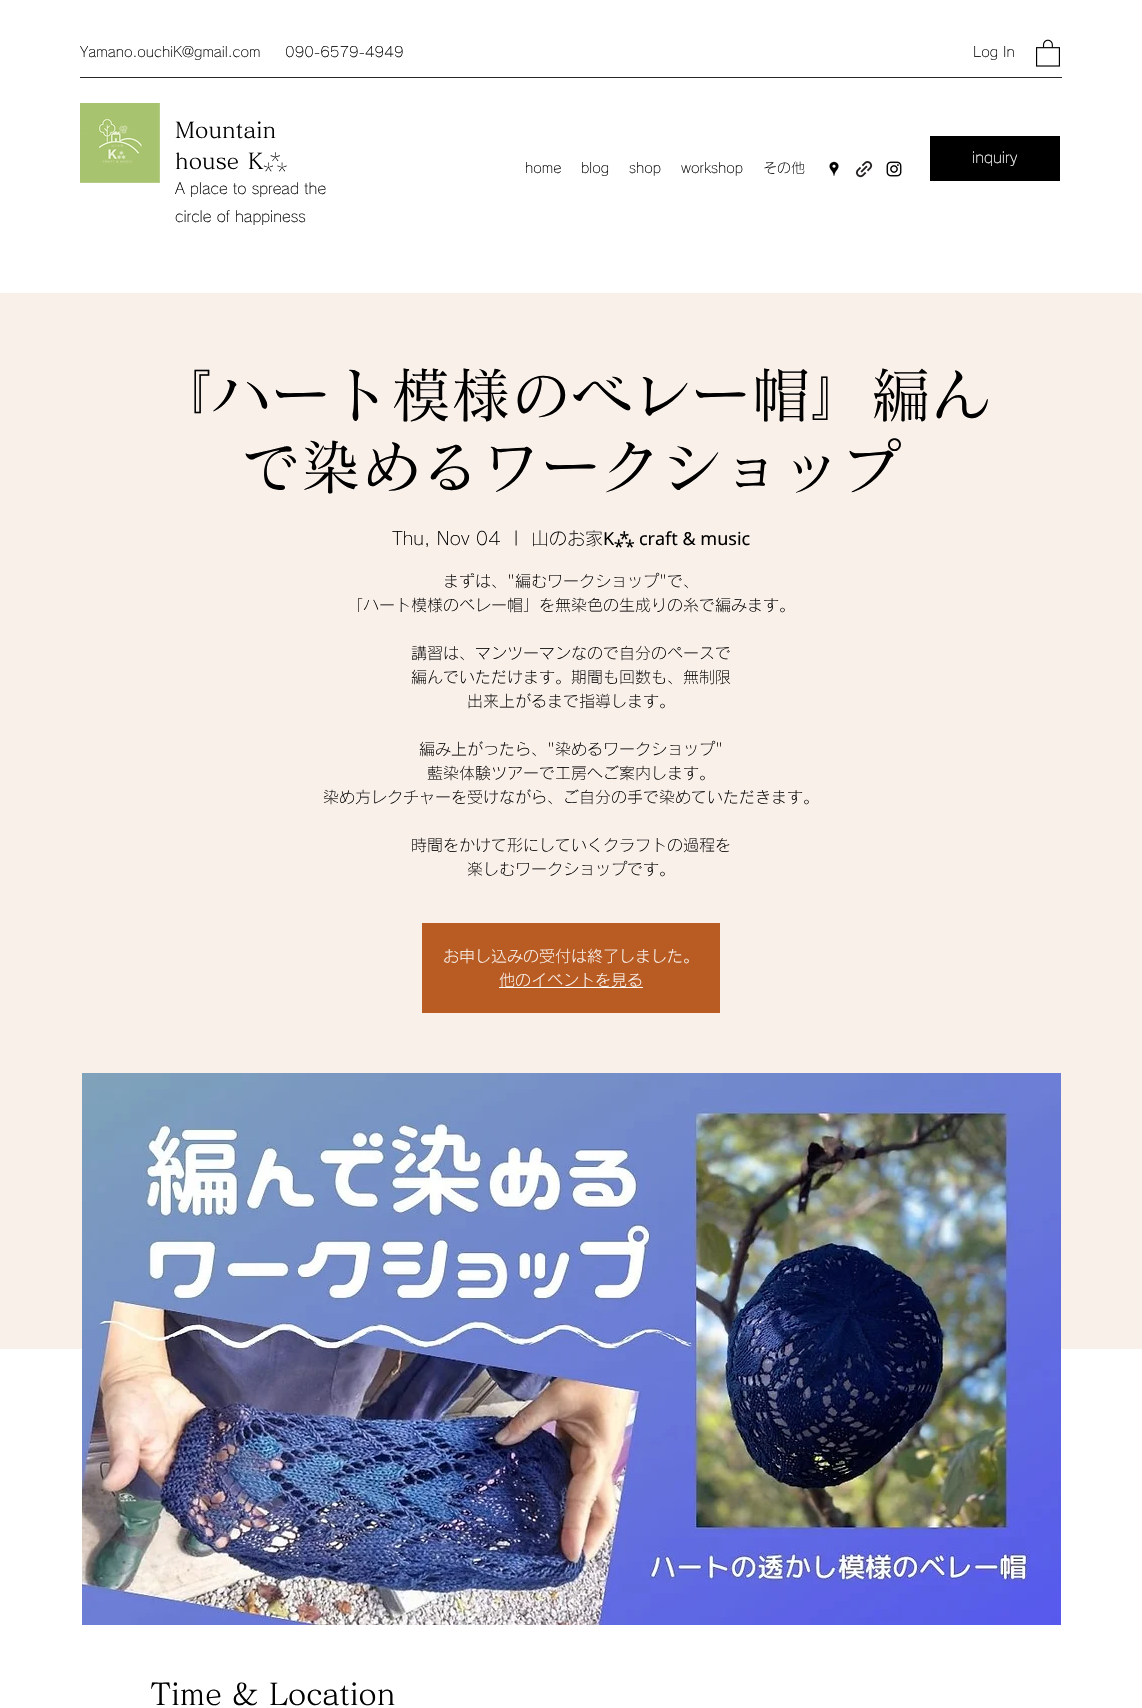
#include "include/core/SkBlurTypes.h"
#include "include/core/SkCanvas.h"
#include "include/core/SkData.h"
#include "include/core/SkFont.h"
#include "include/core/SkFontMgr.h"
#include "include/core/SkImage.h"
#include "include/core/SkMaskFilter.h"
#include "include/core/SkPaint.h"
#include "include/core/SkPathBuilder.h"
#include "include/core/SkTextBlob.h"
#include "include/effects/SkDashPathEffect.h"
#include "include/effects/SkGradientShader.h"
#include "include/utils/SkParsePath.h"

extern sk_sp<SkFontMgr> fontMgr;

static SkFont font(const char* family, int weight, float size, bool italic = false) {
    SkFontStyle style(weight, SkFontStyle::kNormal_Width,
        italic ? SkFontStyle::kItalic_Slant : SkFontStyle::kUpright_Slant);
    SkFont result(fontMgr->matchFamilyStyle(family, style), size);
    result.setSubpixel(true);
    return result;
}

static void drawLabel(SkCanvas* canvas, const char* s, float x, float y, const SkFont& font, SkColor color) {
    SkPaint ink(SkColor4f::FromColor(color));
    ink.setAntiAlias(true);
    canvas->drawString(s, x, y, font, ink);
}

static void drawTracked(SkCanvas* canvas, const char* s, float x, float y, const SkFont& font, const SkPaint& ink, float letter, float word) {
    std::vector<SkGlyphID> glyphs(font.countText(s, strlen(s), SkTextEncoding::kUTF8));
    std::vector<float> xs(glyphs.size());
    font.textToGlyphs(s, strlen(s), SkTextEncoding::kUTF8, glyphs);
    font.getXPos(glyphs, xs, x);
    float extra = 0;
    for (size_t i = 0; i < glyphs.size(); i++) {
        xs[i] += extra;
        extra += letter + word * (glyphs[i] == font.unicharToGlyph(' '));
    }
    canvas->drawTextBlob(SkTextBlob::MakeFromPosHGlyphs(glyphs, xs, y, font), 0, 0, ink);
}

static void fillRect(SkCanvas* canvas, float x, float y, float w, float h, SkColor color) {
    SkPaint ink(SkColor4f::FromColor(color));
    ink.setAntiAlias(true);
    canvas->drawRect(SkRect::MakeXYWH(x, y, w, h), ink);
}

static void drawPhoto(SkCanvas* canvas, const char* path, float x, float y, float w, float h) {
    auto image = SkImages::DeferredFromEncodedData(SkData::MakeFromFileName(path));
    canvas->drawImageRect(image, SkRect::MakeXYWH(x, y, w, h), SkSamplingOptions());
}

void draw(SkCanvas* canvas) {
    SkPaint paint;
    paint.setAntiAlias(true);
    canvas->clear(0xFFFFFFFF);
    SkFont font1 = font("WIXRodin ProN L", 300, 14);
    drawLabel(canvas, "Yamano.ouchiK@gmail.com", 80, 57, font1, 0xFF000000);
    drawLabel(canvas, "090-6579-4949", 285, 57, font1, 0xFF000000);
    drawLabel(canvas, "Log In", 973, 57, font1, 0xFF000000);
    drawPhoto(canvas, "assets/img1.png", 1036, 39, 24, 28);
    fillRect(canvas, 80, 77, 982, 1, 0xFF262626);
    drawPhoto(canvas, "assets/img2.png", 80, 103, 80, 80);
    SkFont font2 = font("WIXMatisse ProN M", 500, 22);
    drawLabel(canvas, "Mountain", 175, 138, font2, 0xFF000000);
    paint.setColor(0xFF000000);
    drawTracked(canvas, "house K", 175, 169, font2, paint, 0, 1);
    SkFont font3 = font("Noto Sans", 100, 22);
    drawLabel(canvas, "⁂", 263, 169, font3, 0xFF000000);
    SkFont font4 = font("WIXRodin ProN L", 300, 15);
    drawLabel(canvas, "A place to spread the", 175, 194, font4, 0xFF000000);
    drawLabel(canvas, "circle of happiness", 175, 222, font4, 0xFF000000);
    fillRect(canvas, 930, 136, 130, 45, 0xFF000000);
    drawLabel(canvas, "inquiry", 972, 163, font4, 0xFFFFFFFF);
    drawLabel(canvas, "home", 525, 173, font1, 0xFF000000);
    drawLabel(canvas, "blog", 581, 173, font1, 0xFF000000);
    drawLabel(canvas, "shop", 629, 173, font1, 0xFF000000);
    drawLabel(canvas, "workshop", 681, 173, font1, 0xFF000000);
    drawLabel(canvas, "その他", 763, 173, font1, 0xFF000000);
    drawPhoto(canvas, "assets/img3.png", 829, 161, 10, 15);
    drawPhoto(canvas, "assets/img4.png", 855, 160, 18, 18);
    drawPhoto(canvas, "assets/img5.png", 886, 161, 16, 16);
    fillRect(canvas, 0, 293, 1142, 1056, 0xFFF9F0EA);
    SkFont font5 = font("WIXMatisse ProN M", 500, 60);
    drawLabel(canvas, "『ハート模様のベレー帽』編ん", 151, 417, font5, 0xFF000000);
    drawLabel(canvas, "で染めるワークショップ", 241, 489, font5, 0xFF000000);
    SkFont font6 = font("WIXRodin ProN L", 300, 18);
    drawLabel(canvas, "Thu, Nov 04", 392, 545, font6, 0xFF000000);
    drawLabel(canvas, "|", 513, 545, font6, 0xFF000000);
    drawLabel(canvas, "山のお家", 531, 545, font6, 0xFF000000);
    SkFont font7 = font("Noto Sans", 400, 18);
    drawLabel(canvas, "K⁂ craft & music", 603, 545, font7, 0xFF000000);
    SkFont font8 = font("WIXRodin ProN L", 300, 16);
    drawLabel(canvas, "まずは、\"編むワークショップ\"で、", 443, 587, font8, 0xFF000000);
    drawLabel(canvas, "「ハート模様のベレー帽」を無染色の生成りの糸で編みます。", 347, 611, font8, 0xFF000000);
    drawLabel(canvas, "講習は、マンツーマンなので自分のペースで", 411, 659, font8, 0xFF000000);
    drawLabel(canvas, "編んでいただけます。期間も回数も、無制限", 411, 683, font8, 0xFF000000);
    drawLabel(canvas, "出来上がるまで指導します。", 467, 707, font8, 0xFF000000);
    drawLabel(canvas, "編み上がったら、\"染めるワークショップ\"", 419, 755, font8, 0xFF000000);
    drawLabel(canvas, "藍染体験ツアーで工房へご案内します。", 427, 779, font8, 0xFF000000);
    drawLabel(canvas, "染め方レクチャーを受けながら、ご自分の手で染めていただきます。", 323, 803, font8, 0xFF000000);
    drawLabel(canvas, "時間をかけて形にしていくクラフトの過程を", 411, 851, font8, 0xFF000000);
    drawLabel(canvas, "楽しむワークショップです。", 467, 875, font8, 0xFF000000);
    fillRect(canvas, 422, 923, 298, 90, 0xFFB85C23);
    drawLabel(canvas, "お申し込みの受付は終了しました。", 443, 962, font8, 0xFFFFFFFF);
    fillRect(canvas, 499, 987, 144, 1, 0xFFFFFFFF);
    drawLabel(canvas, "他のイベントを見る", 499, 986, font8, 0xFFFFFFFF);
    drawPhoto(canvas, "assets/img6.png", 82, 1073, 979, 552);
    SkFont font9 = font("WIXMatisse ProN M", 500, 30);
    drawLabel(canvas, "Time & Location", 150, 1705, font9, 0xFF000000);
}
